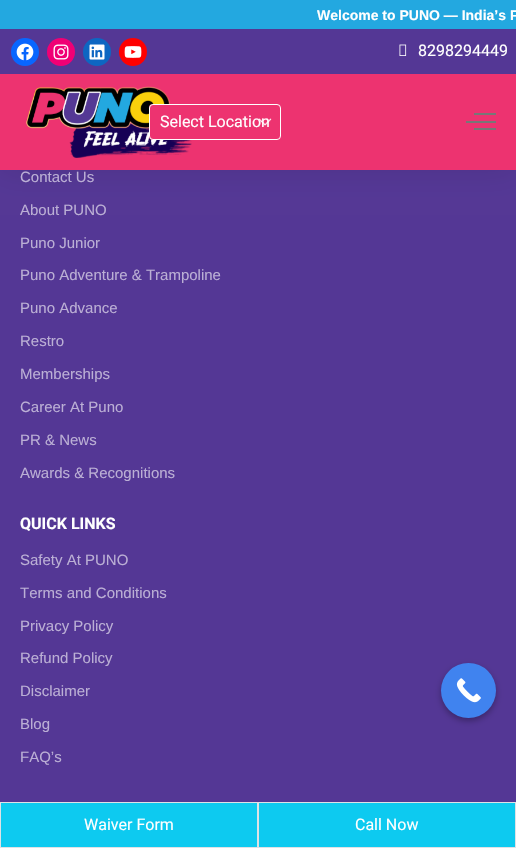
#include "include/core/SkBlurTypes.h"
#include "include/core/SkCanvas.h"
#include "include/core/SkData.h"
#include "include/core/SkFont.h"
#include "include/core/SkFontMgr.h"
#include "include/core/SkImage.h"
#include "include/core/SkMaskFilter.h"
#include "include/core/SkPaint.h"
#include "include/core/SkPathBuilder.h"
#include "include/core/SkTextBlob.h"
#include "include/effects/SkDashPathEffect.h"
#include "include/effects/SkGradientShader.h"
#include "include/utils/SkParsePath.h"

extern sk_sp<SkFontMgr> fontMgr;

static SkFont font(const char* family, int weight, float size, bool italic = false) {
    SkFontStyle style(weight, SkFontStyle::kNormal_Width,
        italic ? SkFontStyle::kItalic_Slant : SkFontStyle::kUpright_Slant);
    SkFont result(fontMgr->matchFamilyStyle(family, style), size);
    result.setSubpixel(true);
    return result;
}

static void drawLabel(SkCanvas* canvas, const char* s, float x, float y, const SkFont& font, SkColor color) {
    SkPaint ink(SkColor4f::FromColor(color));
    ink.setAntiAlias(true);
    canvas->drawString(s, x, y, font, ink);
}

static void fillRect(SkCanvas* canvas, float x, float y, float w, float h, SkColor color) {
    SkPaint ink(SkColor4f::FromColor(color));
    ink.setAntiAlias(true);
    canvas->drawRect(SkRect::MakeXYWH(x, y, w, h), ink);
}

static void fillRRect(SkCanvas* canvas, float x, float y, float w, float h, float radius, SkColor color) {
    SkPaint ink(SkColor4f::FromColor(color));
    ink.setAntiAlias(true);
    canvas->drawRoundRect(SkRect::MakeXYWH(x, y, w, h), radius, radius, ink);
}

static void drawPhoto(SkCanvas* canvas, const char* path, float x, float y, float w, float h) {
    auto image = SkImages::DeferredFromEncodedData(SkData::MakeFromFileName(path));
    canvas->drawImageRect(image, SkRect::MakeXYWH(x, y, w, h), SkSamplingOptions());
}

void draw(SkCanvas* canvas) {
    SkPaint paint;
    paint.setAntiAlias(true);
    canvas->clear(0xFF543795);
    paint.setColor(0x1A181818);
    paint.setMaskFilter(SkMaskFilter::MakeBlur(kNormal_SkBlurStyle, 15));
    canvas->drawRect(SkRect::MakeXYWH(0, 0, 516, 170), paint);
    paint.setMaskFilter(nullptr);
    fillRect(canvas, 0, 74, 516, 96, 0xFFED3370);
    fillRect(canvas, 0, 0, 516, 29, 0xFF23A8E0);
    SkFont font1 = font("Liberation Sans", 700, 14);
    drawLabel(canvas, "Welcome to PUNO — India’s F", 317, 20, font1, 0xFFFFFFFF);
    fillRect(canvas, 0, 29, 516, 45, 0xFF543795);
    paint.setColor(0xFF0866FF);
    canvas->drawCircle(25, 52, 14, paint);
    drawPhoto(canvas, "assets/img1.png", 16, 43, 18, 18);
    paint.setColor(0xFFF00075);
    canvas->drawCircle(61, 52, 14, paint);
    drawPhoto(canvas, "assets/img2.png", 53, 44, 16, 16);
    paint.setColor(0xFF0D66C2);
    canvas->drawCircle(97, 52, 14, paint);
    drawPhoto(canvas, "assets/img3.png", 89, 44, 16, 16);
    paint.setColor(0xFFFF0000);
    canvas->drawCircle(133, 52, 14, paint);
    drawPhoto(canvas, "assets/img4.png", 124, 46, 18, 12);
    drawPhoto(canvas, "assets/img5.png", 399, 44, 8, 12);
    SkFont font2 = font("Roboto", 400, 16);
    drawLabel(canvas, "8298294449", 418, 56, font2, 0xFFFFFFFF);
    drawPhoto(canvas, "assets/img6.png", 26, 86, 166, 72);
    fillRRect(canvas, 149, 104, 132, 36, 4, 0xFFED3370);
    drawPhoto(canvas, "assets/img7.png", 258, 118, 14, 8);
    paint.setStroke(true);
    paint.setStrokeWidth(1);
    paint.setColor(0xFFFFFFFF);
    canvas->drawRoundRect(SkRect::MakeXYWH(149.5f, 104.5f, 131, 35), 3.5f, 3.5f, paint);
    drawLabel(canvas, "Select Location", 160, 127, font2, 0xFFFFFFFF);
    fillRect(canvas, 474, 113, 22, 2, 0xFF777777);
    fillRect(canvas, 466, 121, 30, 2, 0xFF777777);
    fillRect(canvas, 474, 128, 22, 2, 0xFF777777);
    paint.setStroke(false);
    paint.setColor(0xFF0DCAF0);
    canvas->drawRect(SkRect::MakeXYWH(0.5f, 802.5f, 257, 45), paint);
    paint.setStroke(true);
    paint.setColor(0xFFDEE2E6);
    canvas->drawRect(SkRect::MakeXYWH(0.5f, 802.5f, 257, 45), paint);
    drawLabel(canvas, "Waiver Form", 84, 830, font2, 0xFFFFFFFF);
    paint.setStroke(false);
    paint.setColor(0xFF0DCAF0);
    canvas->drawRect(SkRect::MakeXYWH(258.5f, 802.5f, 257, 45), paint);
    paint.setStroke(true);
    paint.setColor(0xFFDEE2E6);
    canvas->drawRect(SkRect::MakeXYWH(258.5f, 802.5f, 257, 45), paint);
    drawLabel(canvas, "Call Now", 355, 830, font2, 0xFFFFFFFF);
    SkFont font3 = font("Liberation Sans", 400, 15);
    drawLabel(canvas, "Contact Us", 20, 182, font3, 0xFFBBAFD5);
    drawLabel(canvas, "About PUNO", 20, 215, font3, 0xFFBBAFD5);
    drawLabel(canvas, "Puno Junior", 20, 248, font3, 0xFFBBAFD5);
    drawLabel(canvas, "Puno Adventure & Trampoline", 20, 280, font3, 0xFFBBAFD5);
    drawLabel(canvas, "Puno Advance", 20, 313, font3, 0xFFBBAFD5);
    drawLabel(canvas, "Restro", 20, 346, font3, 0xFFBBAFD5);
    drawLabel(canvas, "Memberships", 20, 379, font3, 0xFFBBAFD5);
    drawLabel(canvas, "Career At Puno", 20, 412, font3, 0xFFBBAFD5);
    drawLabel(canvas, "PR & News", 20, 445, font3, 0xFFBBAFD5);
    drawLabel(canvas, "Awards & Recognitions", 20, 478, font3, 0xFFBBAFD5);
    SkFont font4 = font("Roboto", 700, 16);
    drawLabel(canvas, "QUICK LINKS", 20, 529, font4, 0xFFFFFFFF);
    drawLabel(canvas, "Safety At PUNO", 20, 565, font3, 0xFFBBAFD5);
    drawLabel(canvas, "Terms and Conditions", 20, 598, font3, 0xFFBBAFD5);
    drawLabel(canvas, "Privacy Policy", 20, 631, font3, 0xFFBBAFD5);
    drawLabel(canvas, "Refund Policy", 20, 663, font3, 0xFFBBAFD5);
    drawLabel(canvas, "Disclaimer", 20, 696, font3, 0xFFBBAFD5);
    drawLabel(canvas, "Blog", 20, 729, font3, 0xFFBBAFD5);
    drawLabel(canvas, "FAQ’s", 20, 762, font3, 0xFFBBAFD5);
    paint.setStroke(false);
    paint.setColor(0x4D000000);
    paint.setMaskFilter(SkMaskFilter::MakeBlur(kNormal_SkBlurStyle, 3));
    canvas->drawRoundRect(SkRect::MakeXYWH(441, 666, 55, 55), 27.5f, 27.5f, paint);
    paint.setMaskFilter(nullptr);
    paint.setColor(0xFF4083EF);
    canvas->drawCircle(468.5f, 690.5f, 27.5f, paint);
    drawPhoto(canvas, "assets/img8.png", 456, 678, 25, 25);
}
